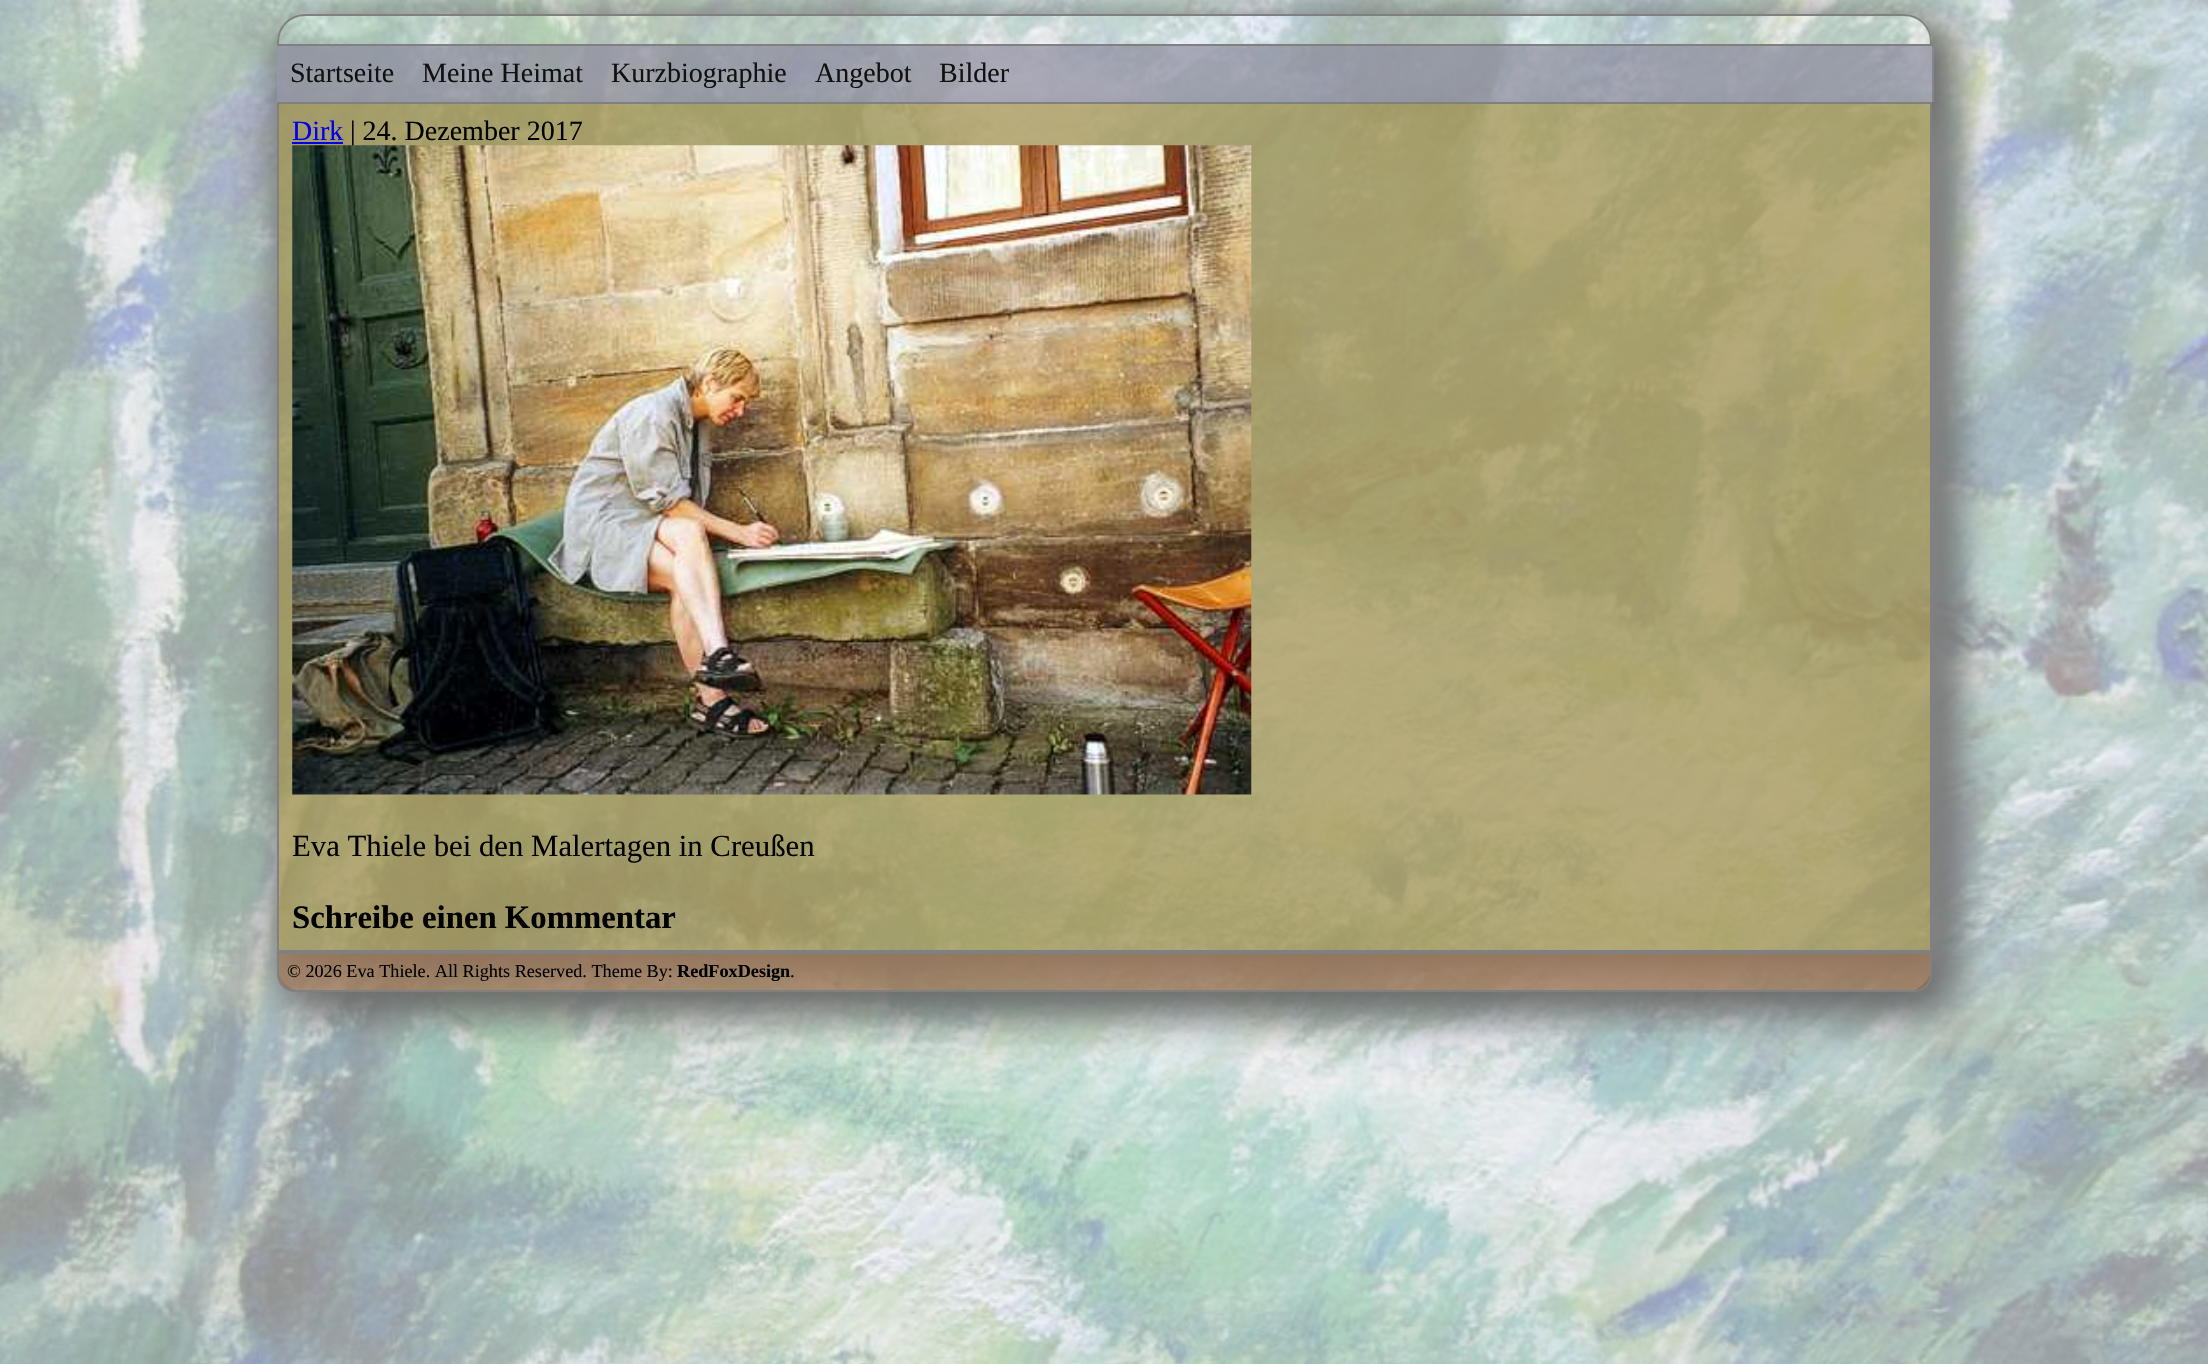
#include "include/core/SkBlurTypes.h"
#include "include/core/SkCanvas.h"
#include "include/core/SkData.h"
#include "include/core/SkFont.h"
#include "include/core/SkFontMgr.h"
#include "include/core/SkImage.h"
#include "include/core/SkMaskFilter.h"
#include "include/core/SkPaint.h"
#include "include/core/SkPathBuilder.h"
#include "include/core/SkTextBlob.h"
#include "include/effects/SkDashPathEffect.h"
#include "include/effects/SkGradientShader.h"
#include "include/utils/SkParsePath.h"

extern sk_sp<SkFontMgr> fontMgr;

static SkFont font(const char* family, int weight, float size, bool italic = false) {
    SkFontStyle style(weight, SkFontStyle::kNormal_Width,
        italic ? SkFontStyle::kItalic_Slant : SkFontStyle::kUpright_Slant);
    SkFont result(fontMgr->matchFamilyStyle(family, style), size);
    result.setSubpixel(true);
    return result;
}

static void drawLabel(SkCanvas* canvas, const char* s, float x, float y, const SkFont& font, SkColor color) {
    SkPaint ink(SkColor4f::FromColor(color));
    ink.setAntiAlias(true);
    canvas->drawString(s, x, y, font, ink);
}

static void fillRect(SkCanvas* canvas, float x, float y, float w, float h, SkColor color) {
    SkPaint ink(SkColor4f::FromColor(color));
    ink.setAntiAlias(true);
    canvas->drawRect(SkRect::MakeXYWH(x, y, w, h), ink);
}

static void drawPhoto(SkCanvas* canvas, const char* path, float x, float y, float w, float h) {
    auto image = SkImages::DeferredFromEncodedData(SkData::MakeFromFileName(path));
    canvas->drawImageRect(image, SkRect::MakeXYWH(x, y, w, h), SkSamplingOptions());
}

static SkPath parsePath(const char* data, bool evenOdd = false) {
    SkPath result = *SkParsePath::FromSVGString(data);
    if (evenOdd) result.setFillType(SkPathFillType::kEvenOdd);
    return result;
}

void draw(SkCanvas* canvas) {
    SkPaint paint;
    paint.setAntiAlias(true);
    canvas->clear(0xFFFFFFFF);
    drawPhoto(canvas, "assets/img1.png", 0, 0, 2208, 1364);
    canvas->save();
    canvas->clipPath(parsePath("M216 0H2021V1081H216ZM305 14H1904C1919.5 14 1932 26.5 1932 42V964C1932 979.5 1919.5 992 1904 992H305C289.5 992 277 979.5 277 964V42C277 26.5 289.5 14 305 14Z", true), true);
    paint.setColor(0xFF666666);
    paint.setMaskFilter(SkMaskFilter::MakeBlur(kNormal_SkBlurStyle, 21));
    canvas->drawRoundRect(SkRect::MakeXYWH(280, 18, 1677, 999), 39, 39, paint);
    paint.setMaskFilter(nullptr);
    canvas->restore();
    paint.setStroke(true);
    paint.setStrokeWidth(2);
    paint.setColor(0xFF808080);
    canvas->drawPath(parsePath("M305 15H1904C1919 15 1931 27 1931 42V45H278V42C278 27 290 15 305 15Z"), paint);
    fillRect(canvas, 277, 46, 1657, 56, 0xB38B8A9C);
    canvas->save();
    canvas->clipPath(parsePath("M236 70H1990V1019H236ZM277 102H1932V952H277Z", true), true);
    paint.setStroke(false);
    paint.setColor(0xFF888888);
    paint.setMaskFilter(SkMaskFilter::MakeBlur(kNormal_SkBlurStyle, 16));
    canvas->drawRect(SkRect::MakeXYWH(285, 119, 1656, 851), paint);
    paint.setMaskFilter(nullptr);
    canvas->restore();
    SkFont font1 = font("Liberation Serif", 400, 28);
    drawLabel(canvas, "Startseite", 290, 82, font1, 0xFF111111);
    drawLabel(canvas, "Meine Heimat", 422, 82, font1, 0xFF111111);
    drawLabel(canvas, "Kurzbiographie", 611, 82, font1, 0xFF111111);
    drawLabel(canvas, "Angebot", 815, 82, font1, 0xFF111111);
    drawLabel(canvas, "Bilder", 939, 82, font1, 0xFF111111);
    paint.setColor(0xB39E8D47);
    canvas->drawRect(SkRect::MakeXYWH(278, 103, 1653, 848), paint);
    paint.setStroke(true);
    paint.setColor(0xFF808080);
    canvas->drawRect(SkRect::MakeXYWH(278, 103, 1653, 848), paint);
    drawLabel(canvas, "Dirk", 292, 140, font1, 0xFF0000EE);
    fillRect(canvas, 292, 142, 51, 2, 0xFF0000EE);
    drawLabel(canvas, "| 24. Dezember 2017", 350, 140, font1, 0xFF000000);
    drawPhoto(canvas, "assets/img2.png", 292, 145, 960, 650);
    SkFont font2 = font("Liberation Serif", 400, 30.75f);
    drawLabel(canvas, "Eva Thiele bei den Malertagen in Creußen", 292, 856, font2, 0xFF000000);
    SkFont font3 = font("Liberation Serif", 700, 32.75f);
    drawLabel(canvas, "Schreibe einen Kommentar", 292, 928, font3, 0xFF000000);
    paint.setStroke(false);
    paint.setColor(0xB3966947);
    canvas->drawPath(parsePath("M278 953H1931V974C1931 983.5 1923.5 991 1914 991H295C285.5 991 278 983.5 278 974Z"), paint);
    paint.setStroke(true);
    paint.setColor(0xFF808080);
    canvas->drawPath(parsePath("M278 953H1931V974C1931 983.5 1923.5 991 1914 991H295C285.5 991 278 983.5 278 974Z"), paint);
    SkFont font4 = font("Liberation Serif", 400, 18.2f);
    drawLabel(canvas, "© 2026 Eva Thiele. All Rights Reserved. Theme By:", 287, 977, font4, 0xFF000000);
    SkFont font5 = font("Liberation Serif", 700, 18.2f);
    drawLabel(canvas, "RedFoxDesign", 677, 977, font5, 0xFF000000);
    drawLabel(canvas, ".", 790, 977, font4, 0xFF000000);
}
